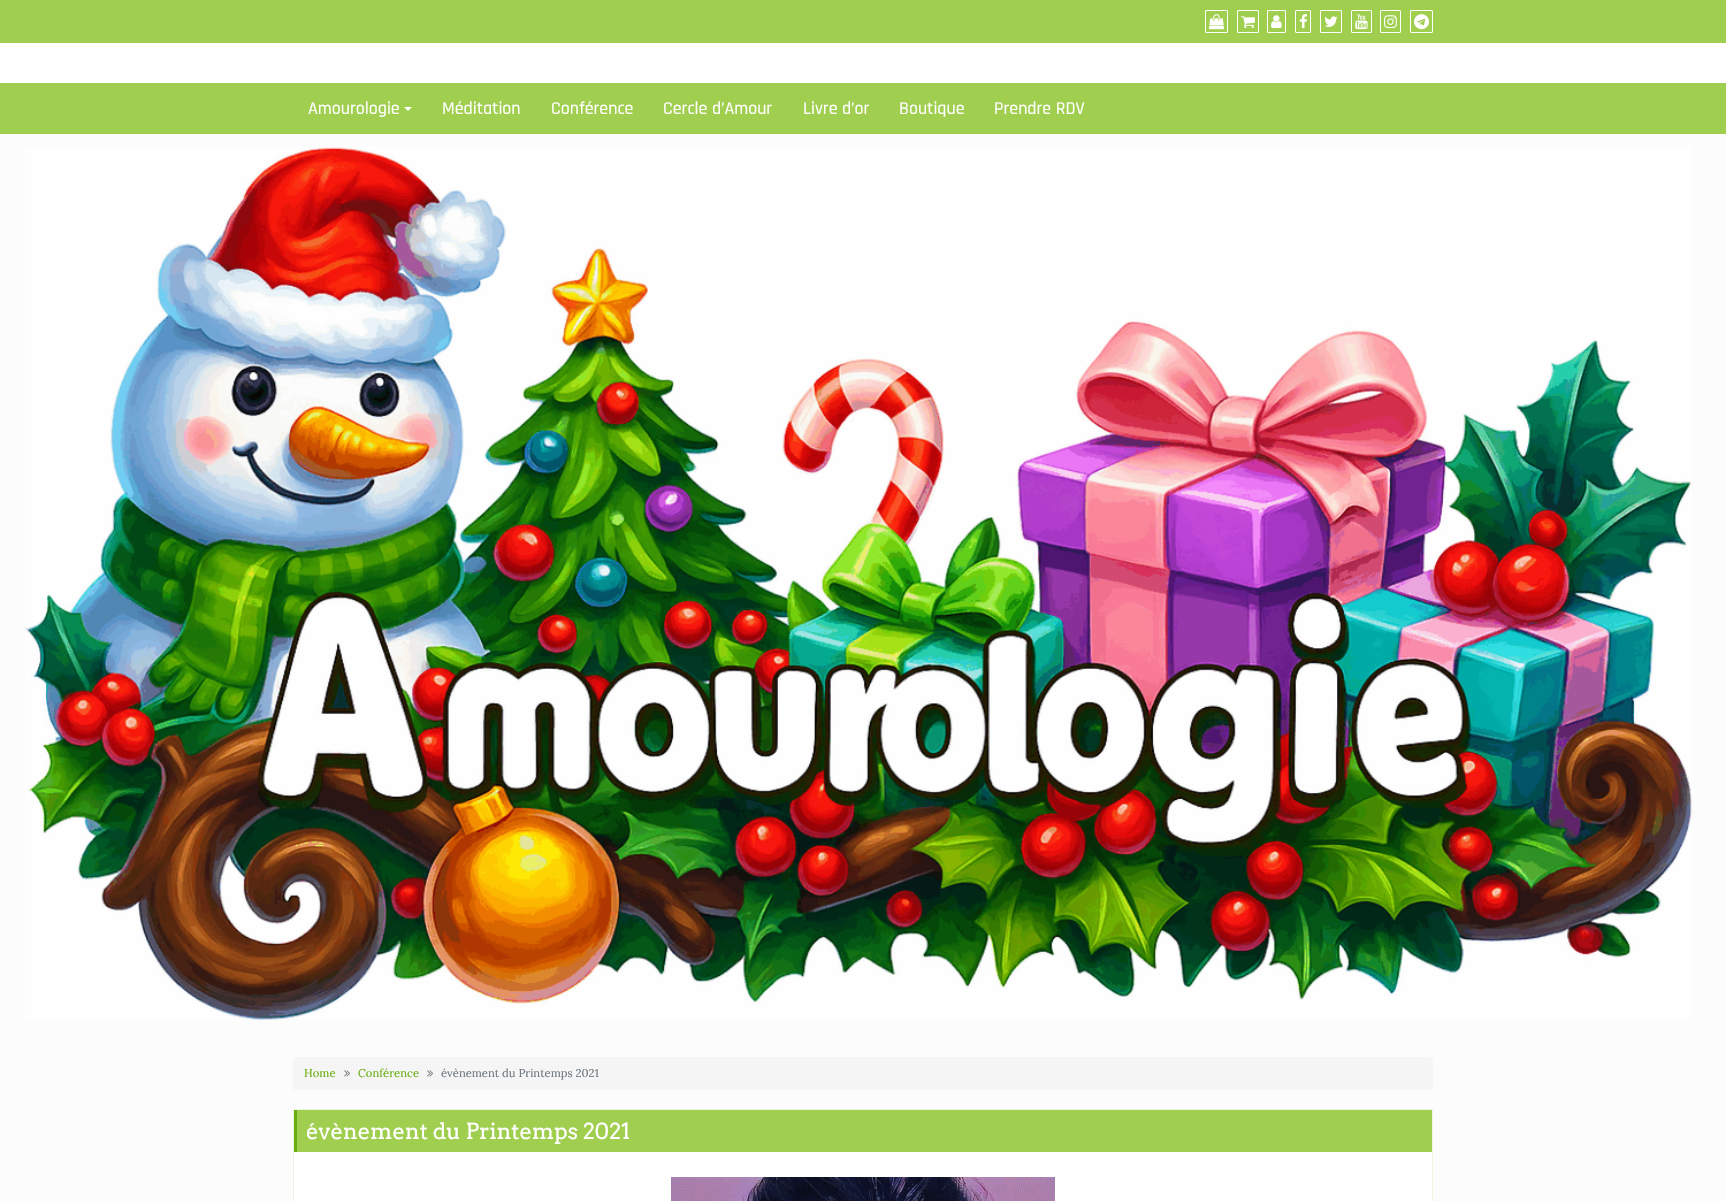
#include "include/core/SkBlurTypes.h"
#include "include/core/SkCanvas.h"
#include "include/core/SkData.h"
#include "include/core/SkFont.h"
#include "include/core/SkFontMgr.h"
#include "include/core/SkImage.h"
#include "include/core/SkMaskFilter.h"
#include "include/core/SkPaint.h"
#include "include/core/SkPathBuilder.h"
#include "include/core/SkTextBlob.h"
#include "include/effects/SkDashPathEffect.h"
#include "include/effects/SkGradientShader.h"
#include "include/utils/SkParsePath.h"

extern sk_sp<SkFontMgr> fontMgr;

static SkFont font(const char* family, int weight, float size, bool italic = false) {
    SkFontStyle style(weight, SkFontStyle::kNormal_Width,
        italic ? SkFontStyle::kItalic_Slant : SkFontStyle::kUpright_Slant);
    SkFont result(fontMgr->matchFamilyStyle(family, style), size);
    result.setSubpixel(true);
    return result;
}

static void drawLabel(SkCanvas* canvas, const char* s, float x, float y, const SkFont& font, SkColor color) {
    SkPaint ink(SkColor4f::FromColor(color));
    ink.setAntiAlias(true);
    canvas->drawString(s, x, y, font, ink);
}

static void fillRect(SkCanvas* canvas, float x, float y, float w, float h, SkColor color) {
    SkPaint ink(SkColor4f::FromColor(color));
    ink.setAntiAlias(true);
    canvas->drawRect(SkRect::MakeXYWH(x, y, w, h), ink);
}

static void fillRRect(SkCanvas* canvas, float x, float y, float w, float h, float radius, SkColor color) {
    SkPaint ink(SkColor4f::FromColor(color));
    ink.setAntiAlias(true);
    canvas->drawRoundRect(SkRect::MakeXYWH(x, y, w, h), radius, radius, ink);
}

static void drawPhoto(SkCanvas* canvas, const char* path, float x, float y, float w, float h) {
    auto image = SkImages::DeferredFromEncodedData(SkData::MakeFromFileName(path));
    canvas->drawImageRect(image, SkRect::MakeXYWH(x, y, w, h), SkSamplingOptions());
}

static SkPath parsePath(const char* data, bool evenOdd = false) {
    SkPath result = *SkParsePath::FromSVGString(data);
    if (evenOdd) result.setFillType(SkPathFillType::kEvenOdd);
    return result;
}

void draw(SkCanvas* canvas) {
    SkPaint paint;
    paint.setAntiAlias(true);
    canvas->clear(0xFFFCFCFC);
    fillRect(canvas, 0, 0, 1726, 43, 0xFFA0CE4E);
    paint.setStroke(true);
    paint.setStrokeWidth(1);
    paint.setColor(0xFFFFFFFF);
    canvas->drawRoundRect(SkRect::MakeXYWH(1205.5f, 10.5f, 22, 22), 0.5f, 0.5f, paint);
    drawPhoto(canvas, "assets/img1.png", 1209, 14, 15, 16);
    canvas->drawRoundRect(SkRect::MakeXYWH(1237.5f, 10.5f, 21, 22), 0.5f, 0.5f, paint);
    drawPhoto(canvas, "assets/img2.png", 1241, 16, 14, 13);
    canvas->drawRoundRect(SkRect::MakeXYWH(1267.5f, 10.5f, 18, 22), 0.5f, 0.5f, paint);
    drawPhoto(canvas, "assets/img3.png", 1271, 15, 11, 14);
    canvas->drawRoundRect(SkRect::MakeXYWH(1295.5f, 10.5f, 15, 22), 0.5f, 0.5f, paint);
    drawPhoto(canvas, "assets/img4.png", 1299, 14, 9, 15);
    canvas->drawRoundRect(SkRect::MakeXYWH(1320.5f, 10.5f, 21, 22), 0.5f, 0.5f, paint);
    drawPhoto(canvas, "assets/img5.png", 1324, 16, 14, 11);
    canvas->drawRoundRect(SkRect::MakeXYWH(1351.5f, 10.5f, 20, 22), 0.5f, 0.5f, paint);
    drawPhoto(canvas, "assets/img6.png", 1355, 14, 13, 16);
    canvas->drawRoundRect(SkRect::MakeXYWH(1380.5f, 10.5f, 20, 22), 0.5f, 0.5f, paint);
    drawPhoto(canvas, "assets/img7.png", 1384, 15, 13, 14);
    canvas->drawRoundRect(SkRect::MakeXYWH(1410.5f, 10.5f, 22, 22), 0.5f, 0.5f, paint);
    drawPhoto(canvas, "assets/img8.png", 1414, 14, 15, 16);
    fillRect(canvas, 0, 43, 1726, 40, 0xFFFFFFFF);
    fillRect(canvas, 0, 83, 1726, 51, 0xFFA0CE4E);
    SkFont font1 = font("Rajdhani", 500, 18);
    drawLabel(canvas, "Amourologie", 308, 114, font1, 0xFFFFFFFF);
    paint.setStroke(false);
    canvas->drawPath(parsePath("M404 107H412L408 111Z"), paint);
    drawLabel(canvas, "Méditation", 442, 114, font1, 0xFFFFFFFF);
    drawLabel(canvas, "Conférence", 551, 114, font1, 0xFFFFFFFF);
    drawLabel(canvas, "Cercle d’Amour", 663, 114, font1, 0xFFFFFFFF);
    drawLabel(canvas, "Livre d’or", 803, 114, font1, 0xFFFFFFFF);
    drawLabel(canvas, "Boutique", 899, 114, font1, 0xFFFFFFFF);
    drawLabel(canvas, "Prendre RDV", 994, 114, font1, 0xFFFFFFFF);
    drawPhoto(canvas, "assets/img9.png", 25, 147, 1667, 873);
    fillRRect(canvas, 293, 1057, 1140, 33, 4, 0xFFF5F5F5);
    SkFont font2 = font("Lora", 400, 11.25f);
    drawLabel(canvas, "Home", 304, 1077, font2, 0xFF68AC10);
    drawPhoto(canvas, "assets/img10.png", 344, 1070, 6, 7);
    drawLabel(canvas, "Conférence", 358, 1077, font2, 0xFF68AC10);
    drawPhoto(canvas, "assets/img10.png", 427, 1070, 6, 7);
    drawLabel(canvas, "évènement du Printemps 2021", 441, 1077, font2, 0xFF6C757D);
    fillRect(canvas, 294, 1152, 1138, 49, 0xFFFFFFFF);
    paint.setStroke(true);
    paint.setColor(0xFFEDF5E2);
    canvas->drawRect(SkRect::MakeXYWH(293.5f, 1109.5f, 1139, 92), paint);
    fillRect(canvas, 297, 1110, 1135, 42, 0xFFA0CE4E);
    fillRect(canvas, 294, 1110, 3, 42, 0xFF68AC10);
    SkFont font3 = font("Arvo", 400, 22);
    drawLabel(canvas, "évènement du Printemps 2021", 306, 1139, font3, 0xFFFFFFFF);
    drawPhoto(canvas, "assets/img11.png", 671, 1177, 384, 24);
}
